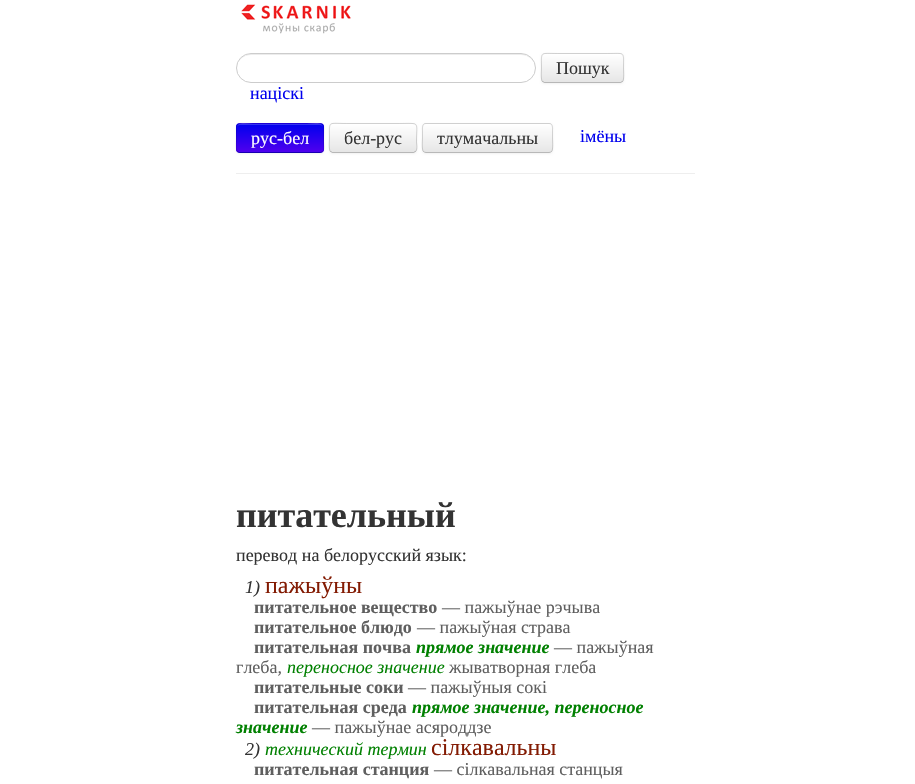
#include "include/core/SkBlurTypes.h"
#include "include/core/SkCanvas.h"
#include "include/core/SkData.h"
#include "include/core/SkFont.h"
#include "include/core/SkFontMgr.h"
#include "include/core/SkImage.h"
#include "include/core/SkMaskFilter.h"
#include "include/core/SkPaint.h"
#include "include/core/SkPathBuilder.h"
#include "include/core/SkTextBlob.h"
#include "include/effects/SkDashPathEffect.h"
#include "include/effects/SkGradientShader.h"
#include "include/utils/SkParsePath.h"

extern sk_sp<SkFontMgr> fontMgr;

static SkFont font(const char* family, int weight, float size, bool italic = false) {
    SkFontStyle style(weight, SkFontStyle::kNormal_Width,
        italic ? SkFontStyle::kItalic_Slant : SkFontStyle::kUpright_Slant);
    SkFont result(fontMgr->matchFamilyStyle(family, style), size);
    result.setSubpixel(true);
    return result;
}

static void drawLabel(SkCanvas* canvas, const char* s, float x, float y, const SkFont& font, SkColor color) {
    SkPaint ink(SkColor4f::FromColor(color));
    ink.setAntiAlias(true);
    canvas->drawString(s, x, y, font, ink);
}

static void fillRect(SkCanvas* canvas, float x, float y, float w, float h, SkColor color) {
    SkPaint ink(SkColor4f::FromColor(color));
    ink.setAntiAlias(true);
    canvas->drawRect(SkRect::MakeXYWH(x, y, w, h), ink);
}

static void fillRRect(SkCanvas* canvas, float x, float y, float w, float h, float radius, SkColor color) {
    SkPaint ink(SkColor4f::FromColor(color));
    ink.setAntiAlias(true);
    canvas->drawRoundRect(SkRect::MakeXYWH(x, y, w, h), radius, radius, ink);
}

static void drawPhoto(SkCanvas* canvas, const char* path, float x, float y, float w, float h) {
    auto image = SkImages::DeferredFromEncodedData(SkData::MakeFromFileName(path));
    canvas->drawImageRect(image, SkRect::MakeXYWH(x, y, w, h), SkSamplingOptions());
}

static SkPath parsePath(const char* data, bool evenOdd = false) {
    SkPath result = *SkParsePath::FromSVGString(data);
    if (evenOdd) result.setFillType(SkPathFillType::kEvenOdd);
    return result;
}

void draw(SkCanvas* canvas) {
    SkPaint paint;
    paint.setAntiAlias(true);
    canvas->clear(0xFFFFFFFF);
    drawPhoto(canvas, "assets/img1.png", 241, 4, 110, 30);
    paint.setColor(0xFFECECEC);
    canvas->drawPath(parsePath("M251 55H521C529 55 535 61 535 68C535 61 529 54 521 54H251C243 54 237 61 237 68C237 61 243 55 251 55Z"), paint);
    paint.setStroke(true);
    paint.setStrokeWidth(1);
    paint.setColor(0xFFCCCCCC);
    canvas->drawRoundRect(SkRect::MakeXYWH(236.5f, 53.5f, 299, 29), 14.5f, 14.5f, paint);
    paint.setStroke(false);
    paint.setColor(0x0D000000);
    paint.setMaskFilter(SkMaskFilter::MakeBlur(kNormal_SkBlurStyle, 1));
    canvas->drawRoundRect(SkRect::MakeXYWH(541, 54, 83, 30), 4, 4, paint);
    paint.setMaskFilter(nullptr);
    fillRRect(canvas, 541, 53, 83, 30, 4, 0xFFF5F5F5);
    canvas->save();
    canvas->clipPath(parsePath("M545 53H620C622 53 624 55 624 57V79C624 81 622 83 620 83H545C543 83 541 81 541 79V57C541 55 543 53 545 53Z"), true);
    {
        const SkColor colors[] = {0xFFFFFFFF, 0xFFE6E6E6};
        const float stops[] = {0, 1};
        const SkPoint ends[] = {{583, 54}, {583, 82}};
        paint.setShader(SkGradientShader::MakeLinear(ends, colors, stops, 2, SkTileMode::kClamp));
        paint.setAlpha(255);
    }
    canvas->drawRect(SkRect::MakeXYWH(541, 54, 83, 28), paint);
    canvas->restore();
    paint.setStroke(true);
    paint.setShader(nullptr);
    paint.setColor(0x40000000);
    canvas->drawPath(parsePath("M622.5 81.5L620.5 82.5H544.5L542.5 81.5"), paint);
    paint.setColor(0x26000000);
    canvas->drawPath(parsePath("M542.5 81.5C540.5 79.5 541.5 71 541.5 68C541.5 51 539.5 53.5 557.5 53.5H607.5C625.5 53.5 623.5 51 623.5 68C623.5 71 624.5 79.5 622.5 81.5"), paint);
    SkFont font1 = font("Liberation Serif", 400, 18);
    drawLabel(canvas, "Пошук", 556, 74, font1, 0xFF333333);
    drawLabel(canvas, "націскі", 250, 99, font1, 0xFF0000EE);
    paint.setStroke(false);
    paint.setColor(0x0D000000);
    paint.setMaskFilter(SkMaskFilter::MakeBlur(kNormal_SkBlurStyle, 1));
    canvas->drawRoundRect(SkRect::MakeXYWH(236, 124, 88, 30), 4, 4, paint);
    paint.setMaskFilter(nullptr);
    fillRRect(canvas, 236, 123, 88, 30, 4, 0xFF2000EE);
    canvas->save();
    canvas->clipPath(parsePath("M240 123H320C322 123 324 125 324 127V149C324 151 322 153 320 153H240C238 153 236 151 236 149V127C236 125 238 123 240 123Z"), true);
    {
        const SkColor colors[] = {0xFF0000EE, 0xFF4F00EE};
        const float stops[] = {0, 1};
        const SkPoint ends[] = {{280, 124}, {280, 152}};
        paint.setShader(SkGradientShader::MakeLinear(ends, colors, stops, 2, SkTileMode::kClamp));
        paint.setAlpha(255);
    }
    canvas->drawRect(SkRect::MakeXYWH(236, 124, 88, 28), paint);
    canvas->restore();
    paint.setShader(nullptr);
    paint.setColor(0x33FFFFFF);
    canvas->drawPath(parsePath("M240 125H320C322 125 323 126 323 128C323 120 310 124 307 124H253C250 124 237 120 237 128C237 126 238 125 240 125Z"), paint);
    paint.setStroke(true);
    paint.setColor(0x40000000);
    canvas->drawPath(parsePath("M322.5 151.5L320.5 152.5H239.5L237.5 151.5"), paint);
    paint.setColor(0x1A000000);
    canvas->drawPath(parsePath("M237.5 151.5C235.5 149.5 236.5 141 236.5 138C236.5 120.5 234.5 123.5 253.5 123.5H306.5C327.5 123.5 323.5 121 323.5 141.5C323.5 144.5 325 149 322.5 151.5"), paint);
    drawLabel(canvas, "рус-бел", 251, 144, font1, 0xFFFFFFFF);
    paint.setStroke(false);
    paint.setColor(0x0D000000);
    paint.setMaskFilter(SkMaskFilter::MakeBlur(kNormal_SkBlurStyle, 1));
    canvas->drawRoundRect(SkRect::MakeXYWH(329, 124, 88, 30), 4, 4, paint);
    paint.setMaskFilter(nullptr);
    fillRRect(canvas, 329, 123, 88, 30, 4, 0xFFF5F5F5);
    canvas->save();
    canvas->clipPath(parsePath("M333 123H413C415 123 417 125 417 127V149C417 151 415 153 413 153H333C331 153 329 151 329 149V127C329 125 331 123 333 123Z"), true);
    {
        const SkColor colors[] = {0xFFFFFFFF, 0xFFE6E6E6};
        const float stops[] = {0, 1};
        const SkPoint ends[] = {{373, 124}, {373, 152}};
        paint.setShader(SkGradientShader::MakeLinear(ends, colors, stops, 2, SkTileMode::kClamp));
        paint.setAlpha(255);
    }
    canvas->drawRect(SkRect::MakeXYWH(329, 124, 88, 28), paint);
    canvas->restore();
    paint.setStroke(true);
    paint.setShader(nullptr);
    paint.setColor(0x40000000);
    canvas->drawPath(parsePath("M415.5 151.5L413.5 152.5H332.5L330.5 151.5"), paint);
    paint.setColor(0x26000000);
    canvas->drawPath(parsePath("M330.5 151.5C328.5 149.5 329.5 141 329.5 138C329.5 120.5 327.5 123.5 346.5 123.5H399.5C420.5 123.5 416.5 121 416.5 141.5C416.5 144.5 418 149 415.5 151.5"), paint);
    drawLabel(canvas, "бел-рус", 344, 144, font1, 0xFF333333);
    paint.setStroke(false);
    paint.setColor(0x0D000000);
    paint.setMaskFilter(SkMaskFilter::MakeBlur(kNormal_SkBlurStyle, 1));
    canvas->drawRoundRect(SkRect::MakeXYWH(422, 124, 131, 30), 4, 4, paint);
    paint.setMaskFilter(nullptr);
    fillRRect(canvas, 422, 123, 131, 30, 4, 0xFFF5F5F5);
    canvas->save();
    canvas->clipPath(parsePath("M426 123H549C551 123 553 125 553 127V149C553 151 551 153 549 153H426C424 153 422 151 422 149V127C422 125 424 123 426 123Z"), true);
    {
        const SkColor colors[] = {0xFFFFFFFF, 0xFFE6E6E6};
        const float stops[] = {0, 1};
        const SkPoint ends[] = {{488, 124}, {488, 152}};
        paint.setShader(SkGradientShader::MakeLinear(ends, colors, stops, 2, SkTileMode::kClamp));
        paint.setAlpha(255);
    }
    canvas->drawRect(SkRect::MakeXYWH(422, 124, 131, 28), paint);
    canvas->restore();
    paint.setStroke(true);
    paint.setShader(nullptr);
    paint.setColor(0xFFB8B8B8);
    canvas->drawPath(parsePath("M551.5 151.5C551 152 550 152.5 549 152.5H426C425 152.5 424 152 423.5 151.5"), paint);
    paint.setColor(0x26000000);
    canvas->drawPath(parsePath("M423.5 151.5C421.5 149.5 422.5 141 422.5 138V130.5C422.5 128 422 123.5 426 123.5H549C553 123.5 552.5 128 552.5 130.5V138C552.5 141 553.5 149.5 551.5 151.5"), paint);
    drawLabel(canvas, "тлумачальны", 437, 144, font1, 0xFF333333);
    drawLabel(canvas, "імёны", 580, 142, font1, 0xFF0000EE);
    fillRect(canvas, 236, 173, 459, 1, 0xFFEEEEEE);
    SkFont font2 = font("Liberation Serif", 700, 36);
    drawLabel(canvas, "питательный", 236, 527, font2, 0xFF333333);
    drawLabel(canvas, "перевод на белорусский язык:", 236, 561, font1, 0xFF333333);
    SkFont font3 = font("Liberation Serif", 400, 18, true);
    drawLabel(canvas, "1)", 245, 593, font3, 0xFF333333);
    SkFont font4 = font("Liberation Serif", 400, 24);
    drawLabel(canvas, "пажыўны", 265, 593, font4, 0xFF831B03);
    SkFont font5 = font("Liberation Serif", 700, 18);
    drawLabel(canvas, "питательное вещество", 254, 613, font5, 0xFF5F5F5F);
    drawLabel(canvas, "— пажыўнае рэчыва", 442, 613, font1, 0xFF5F5F5F);
    drawLabel(canvas, "питательное блюдо", 254, 633, font5, 0xFF5F5F5F);
    drawLabel(canvas, "— пажыўная страва", 417, 633, font1, 0xFF5F5F5F);
    drawLabel(canvas, "питательная почва", 254, 653, font5, 0xFF5F5F5F);
    SkFont font6 = font("Liberation Serif", 700, 18, true);
    drawLabel(canvas, "прямое значение", 416, 653, font6, 0xFF008000);
    drawLabel(canvas, "— пажыўная", 554, 653, font1, 0xFF5F5F5F);
    drawLabel(canvas, "глеба,", 236, 673, font1, 0xFF5F5F5F);
    drawLabel(canvas, "переносное значение", 287, 673, font3, 0xFF008000);
    drawLabel(canvas, "жыватворная глеба", 449, 673, font1, 0xFF5F5F5F);
    drawLabel(canvas, "питательные соки", 254, 693, font5, 0xFF5F5F5F);
    drawLabel(canvas, "— пажыўныя сокі", 408, 693, font1, 0xFF5F5F5F);
    drawLabel(canvas, "питательная среда", 254, 713, font5, 0xFF5F5F5F);
    drawLabel(canvas, "прямое значение, переносное", 412, 713, font6, 0xFF008000);
    drawLabel(canvas, "значение", 236, 733, font6, 0xFF008000);
    drawLabel(canvas, "— пажыўнае асяроддзе", 312, 733, font1, 0xFF5F5F5F);
    drawLabel(canvas, "2)", 245, 755, font3, 0xFF333333);
    drawLabel(canvas, "технический термин", 265, 755, font3, 0xFF008000);
    drawLabel(canvas, "сілкавальны", 431, 755, font4, 0xFF831B03);
    drawLabel(canvas, "питательная станция", 254, 775, font5, 0xFF5F5F5F);
    drawLabel(canvas, "— сілкавальная станцыя", 434, 775, font1, 0xFF5F5F5F);
}
